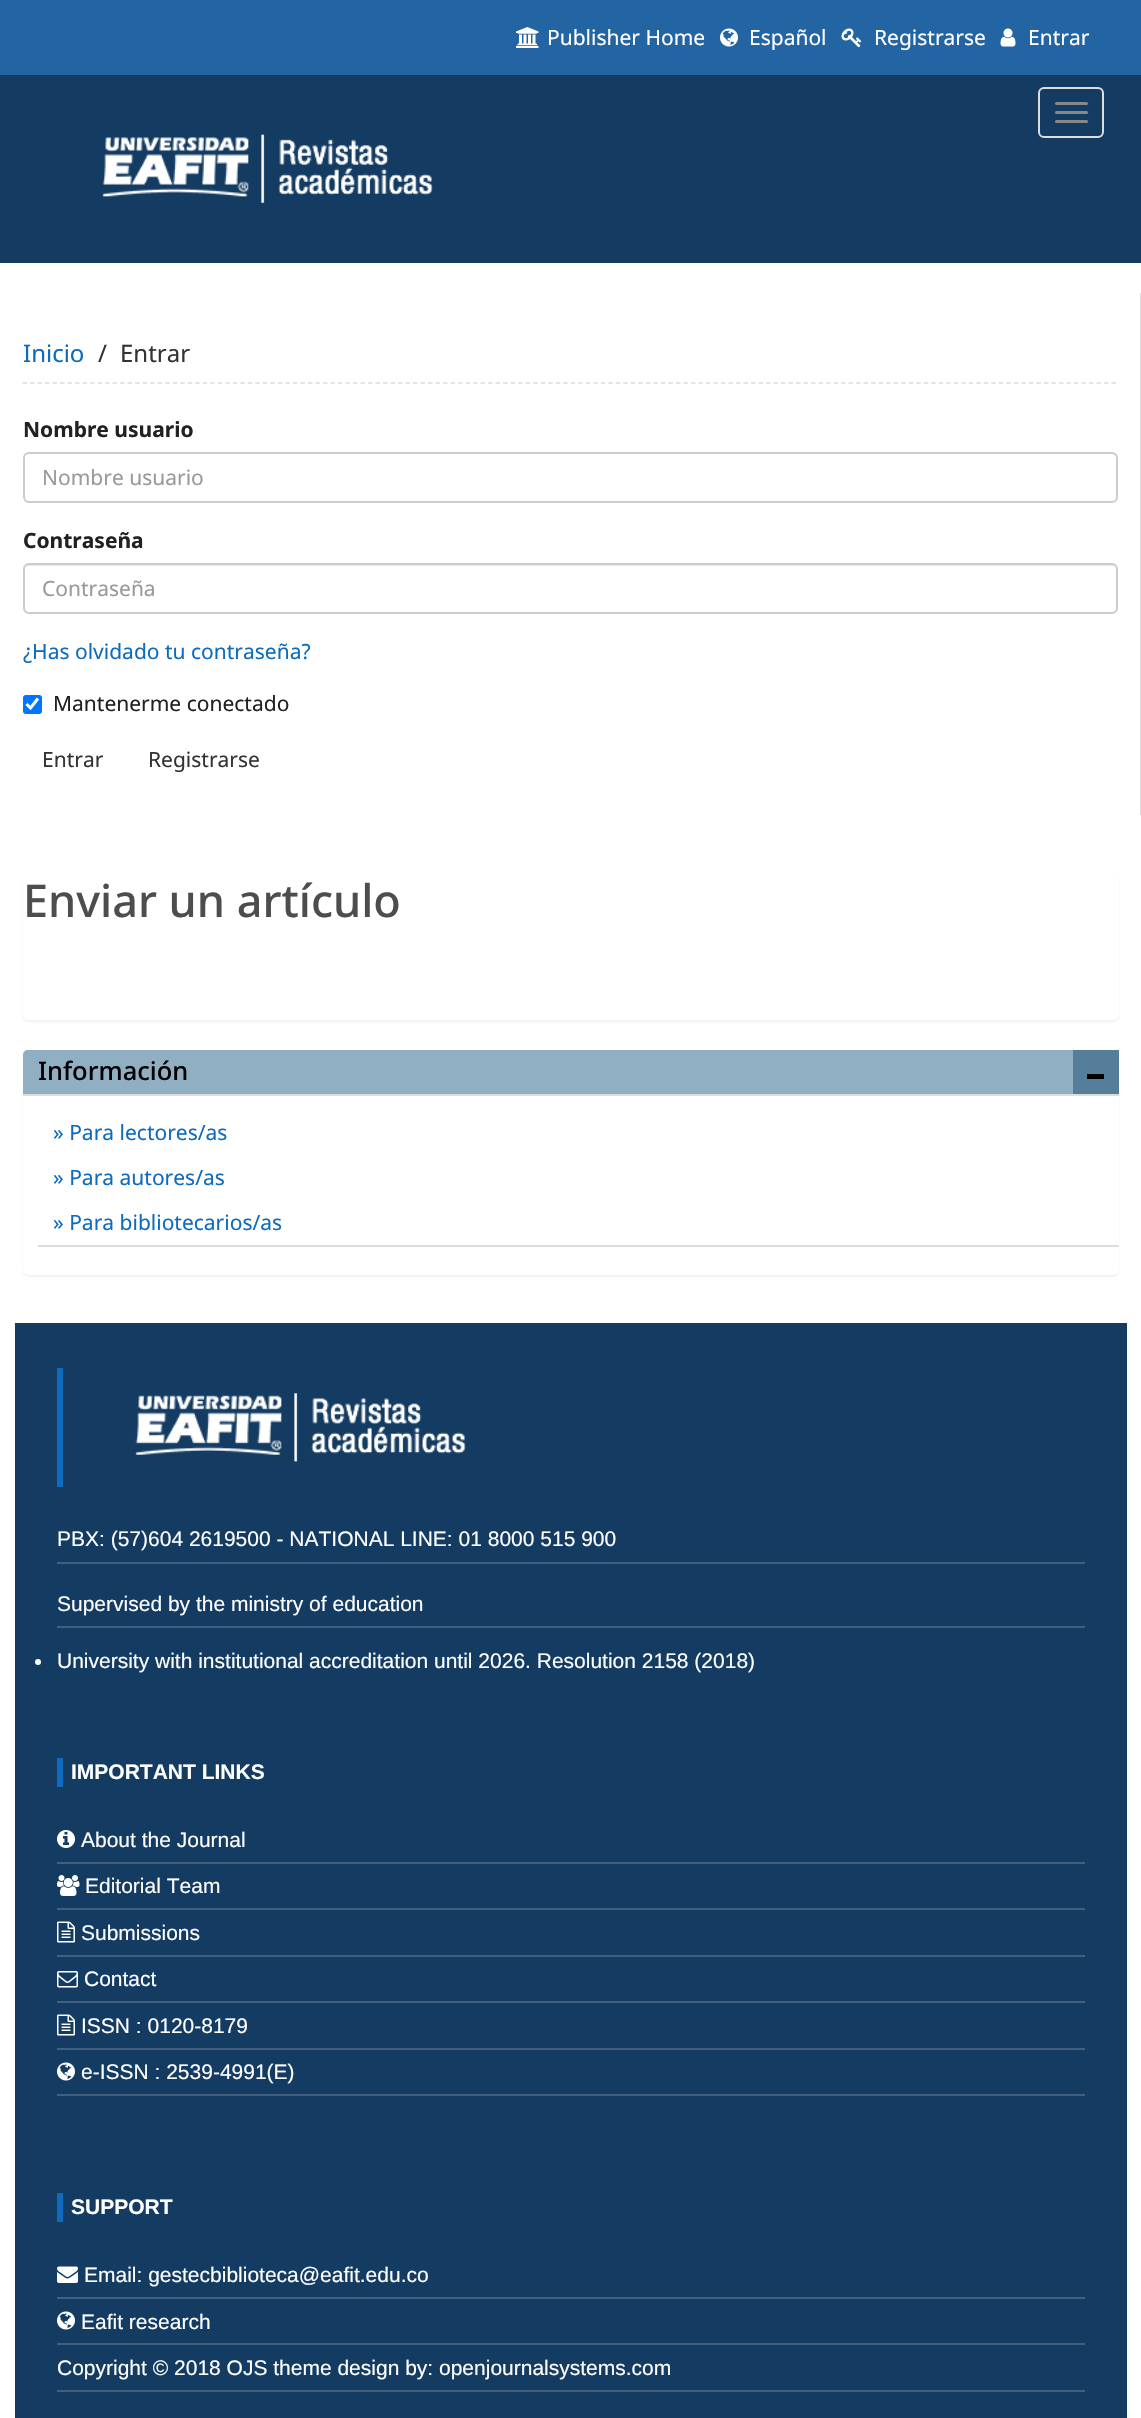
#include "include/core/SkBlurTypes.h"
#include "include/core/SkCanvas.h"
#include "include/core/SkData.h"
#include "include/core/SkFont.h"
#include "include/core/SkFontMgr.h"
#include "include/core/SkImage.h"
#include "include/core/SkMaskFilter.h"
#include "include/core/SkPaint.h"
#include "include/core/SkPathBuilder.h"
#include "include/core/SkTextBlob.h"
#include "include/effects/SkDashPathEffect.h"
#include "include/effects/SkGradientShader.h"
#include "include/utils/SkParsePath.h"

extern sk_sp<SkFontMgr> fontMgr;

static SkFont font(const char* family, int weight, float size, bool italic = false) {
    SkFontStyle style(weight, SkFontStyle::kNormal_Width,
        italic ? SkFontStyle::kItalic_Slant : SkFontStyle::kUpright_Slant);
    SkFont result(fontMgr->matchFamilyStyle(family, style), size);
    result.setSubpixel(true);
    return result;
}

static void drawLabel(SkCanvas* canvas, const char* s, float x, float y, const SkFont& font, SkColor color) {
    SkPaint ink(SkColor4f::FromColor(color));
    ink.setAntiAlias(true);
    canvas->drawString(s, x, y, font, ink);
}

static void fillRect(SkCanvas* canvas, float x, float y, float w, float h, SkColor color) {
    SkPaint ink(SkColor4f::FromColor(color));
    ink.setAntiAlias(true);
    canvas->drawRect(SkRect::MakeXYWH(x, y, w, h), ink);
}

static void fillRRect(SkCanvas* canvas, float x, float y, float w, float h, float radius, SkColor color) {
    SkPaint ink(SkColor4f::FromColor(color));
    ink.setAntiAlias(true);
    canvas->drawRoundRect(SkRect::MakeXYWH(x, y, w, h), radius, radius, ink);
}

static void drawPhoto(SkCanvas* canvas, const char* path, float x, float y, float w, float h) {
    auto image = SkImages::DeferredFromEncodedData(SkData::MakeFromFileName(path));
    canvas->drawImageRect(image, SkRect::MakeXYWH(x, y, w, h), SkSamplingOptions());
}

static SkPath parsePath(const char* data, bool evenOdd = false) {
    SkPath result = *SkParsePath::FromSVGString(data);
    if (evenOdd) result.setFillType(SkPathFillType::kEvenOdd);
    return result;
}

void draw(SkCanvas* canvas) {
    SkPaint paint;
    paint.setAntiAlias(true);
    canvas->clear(0xFFFFFFFF);
    fillRect(canvas, 0, 0, 1141, 75, 0xFF2364A2);
    drawPhoto(canvas, "assets/img1.png", 516, 27, 23, 21);
    SkFont font1 = font("Noto Sans", 400, 21);
    drawLabel(canvas, "Publisher Home", 547, 45, font1, 0xFFFFFFFF);
    drawPhoto(canvas, "assets/img2.png", 720, 28, 18, 19);
    drawLabel(canvas, "Español", 749, 45, font1, 0xFFFFFFFF);
    drawPhoto(canvas, "assets/img3.png", 841, 28, 21, 20);
    drawLabel(canvas, "Registrarse", 874, 45, font1, 0xFFFFFFFF);
    drawPhoto(canvas, "assets/img4.png", 1000, 28, 16, 19);
    drawLabel(canvas, "Entrar", 1028, 45, font1, 0xFFFFFFFF);
    fillRect(canvas, 0, 75, 1141, 188, 0xFF143C62);
    paint.setStroke(true);
    paint.setStrokeWidth(2);
    paint.setColor(0xFFDDDDDD);
    canvas->drawRoundRect(SkRect::MakeXYWH(1039, 88, 64, 49), 5, 5, paint);
    fillRRect(canvas, 1055, 102, 33, 3, 1.5f, 0xFF888888);
    fillRRect(canvas, 1055, 111, 33, 3, 1.5f, 0xFF888888);
    fillRRect(canvas, 1055, 120, 33, 3, 1.5f, 0xFF888888);
    drawPhoto(canvas, "assets/img5.png", 102, 134, 331, 69);
    fillRect(canvas, 1140, 293, 1, 522, 0xFFDDDDDD);
    paint.setStrokeWidth(1.5f);
    paint.setPathEffect(SkDashPathEffect::Make({{4.5f, 3.01f}}, 0));
    canvas->drawPath(parsePath("M22.5 383H1117.5"), paint);
    paint.setPathEffect(nullptr);
    SkFont font2 = font("Noto Sans", 400, 24);
    drawLabel(canvas, "Inicio", 23, 362, font2, 0xFF0E6BBD);
    drawLabel(canvas, "/", 98, 362, font2, 0xFF333333);
    drawLabel(canvas, "Entrar", 120, 362, font2, 0xFF333333);
    SkFont font3 = font("Noto Sans", 700, 21);
    drawLabel(canvas, "Nombre usuario", 23, 437, font3, 0xFF212121);
    paint.setStroke(false);
    paint.setColor(0xFFECECEC);
    canvas->drawPath(parsePath("M28 454H1112C1114 454 1116 457 1116 459C1116 456 1114 453 1111 453H29C26 453 24 456 24 459C24 457 26 454 28 454Z"), paint);
    paint.setStroke(true);
    paint.setStrokeWidth(2);
    paint.setColor(0xFFCCCCCC);
    canvas->drawRoundRect(SkRect::MakeXYWH(24, 453, 1093, 49), 5, 5, paint);
    drawLabel(canvas, "Nombre usuario", 42, 485, font1, 0xFF999999);
    drawLabel(canvas, "Contraseña", 23, 548, font3, 0xFF212121);
    paint.setStroke(false);
    paint.setColor(0xFFECECEC);
    canvas->drawPath(parsePath("M28 566H1112C1114 566 1116 568 1116 570C1116 567 1114 564 1111 564H29C26 564 24 567 24 570C24 568 26 566 28 566Z"), paint);
    paint.setStroke(true);
    paint.setColor(0xFFCCCCCC);
    canvas->drawRoundRect(SkRect::MakeXYWH(24, 564, 1093, 49), 5, 5, paint);
    drawLabel(canvas, "Contraseña", 42, 596, font1, 0xFF999999);
    drawLabel(canvas, "¿Has olvidado tu contraseña?", 23, 659, font1, 0xFF0E6BBD);
    fillRRect(canvas, 23, 695, 19, 19, 3, 0xFF0075FF);
    paint.setStrokeWidth(3.1f);
    paint.setColor(0xFFFFFFFF);
    canvas->drawPath(parsePath("M26.5 704L30.5 708L38 698.5"), paint);
    drawLabel(canvas, "Mantenerme conectado", 53, 711, font1, 0xFF212121);
    drawLabel(canvas, "Entrar", 42, 767, font1, 0xFF333333);
    drawLabel(canvas, "Registrarse", 148, 767, font1, 0xFF333333);
    paint.setStroke(false);
    paint.setColor(0x0D000000);
    paint.setMaskFilter(SkMaskFilter::MakeBlur(kNormal_SkBlurStyle, 1));
    canvas->drawRoundRect(SkRect::MakeXYWH(23, 876, 1096, 146), 6, 6, paint);
    paint.setMaskFilter(nullptr);
    fillRRect(canvas, 23, 875, 1096, 145, 6, 0xFFFFFFFF);
    SkFont font4 = font("Noto Sans", 500, 45);
    drawLabel(canvas, "Enviar un artículo", 23, 917, font4, 0xFF4D4D4D);
    paint.setMaskFilter(SkMaskFilter::MakeBlur(kNormal_SkBlurStyle, 1));
    canvas->drawRoundRect(SkRect::MakeXYWH(23, 1052, 1096, 225), 6, 6, paint);
    paint.setMaskFilter(nullptr);
    fillRRect(canvas, 23, 1050, 1096, 225, 6, 0xFFFFFFFF);
    paint.setColor(0xFF91AFC3);
    canvas->drawPath(parsePath("M28 1050H1114C1117 1050 1119 1052 1119 1055V1095H23V1055C23 1052 25 1050 28 1050Z"), paint);
    fillRect(canvas, 23, 1094, 1096, 2, 0xFFDDDDDD);
    SkFont font5 = font("Noto Sans", 500, 25.5f);
    drawLabel(canvas, "Información", 38, 1080, font5, 0xFF000000);
    fillRect(canvas, 1073, 1050, 46, 44, 0xFF547E9A);
    fillRect(canvas, 1087, 1074, 17, 5, 0xFF000000);
    drawLabel(canvas, "» Para lectores/as", 53, 1140, font1, 0xFF0E6BBD);
    drawLabel(canvas, "» Para autores/as", 53, 1185, font1, 0xFF0E6BBD);
    fillRect(canvas, 38, 1245, 1081, 2, 0xFFDDDDDD);
    drawLabel(canvas, "» Para bibliotecarios/as", 53, 1230, font1, 0xFF0E6BBD);
    fillRect(canvas, 15, 1323, 1112, 1095, 0xFF143C62);
    fillRect(canvas, 57, 1368, 6, 119, 0xFF0E6BBD);
    drawPhoto(canvas, "assets/img6.png", 135, 1393, 331, 69);
    fillRect(canvas, 57, 1562, 1028, 2, 0xFF42607D);
    SkFont font6 = font("Liberation Sans", 400, 21);
    drawLabel(canvas, "PBX: (57)604 2619500 - NATIONAL LINE: 01 8000 515 900", 57, 1546, font6, 0xFFFFFFFF);
    fillRect(canvas, 57, 1626, 1028, 2, 0xFF42607D);
    drawLabel(canvas, "Supervised by the ministry of education", 57, 1611, font6, 0xFFFFFFFF);
    paint.setColor(0xFFFFFFFF);
    canvas->drawCircle(38, 1662, 3, paint);
    drawLabel(canvas, "University with institutional accreditation until 2026. Resolution 2158 (2018)", 57, 1668, font6, 0xFFFFFFFF);
    fillRect(canvas, 57, 1758, 6, 29, 0xFF0E6BBD);
    SkFont font7 = font("Liberation Sans", 700, 21);
    drawLabel(canvas, "IMPORTANT LINKS", 71, 1779, font7, 0xFFFFFFFF);
    fillRect(canvas, 57, 1862, 1028, 2, 0xFF42607D);
    drawPhoto(canvas, "assets/img7.png", 57, 1830, 18, 18);
    drawLabel(canvas, "About the Journal", 81, 1847, font6, 0xFFFFFFFF);
    fillRect(canvas, 57, 1908, 1028, 2, 0xFF42607D);
    drawPhoto(canvas, "assets/img8.png", 57, 1875, 23, 21);
    drawLabel(canvas, "Editorial Team", 85, 1893, font6, 0xFFFFFFFF);
    fillRect(canvas, 57, 1955, 1028, 2, 0xFF42607D);
    drawPhoto(canvas, "assets/img9.png", 57, 1921, 18, 22);
    drawLabel(canvas, "Submissions", 81, 1940, font6, 0xFFFFFFFF);
    fillRect(canvas, 57, 2001, 1028, 2, 0xFF42607D);
    drawPhoto(canvas, "assets/img10.png", 57, 1971, 21, 17);
    drawLabel(canvas, "Contact", 84, 1986, font6, 0xFFFFFFFF);
    fillRect(canvas, 57, 2048, 1028, 2, 0xFF42607D);
    drawPhoto(canvas, "assets/img9.png", 57, 2014, 18, 22);
    drawLabel(canvas, "ISSN : 0120-8179", 81, 2033, font6, 0xFFFFFFFF);
    fillRect(canvas, 57, 2094, 1028, 2, 0xFF42607D);
    drawPhoto(canvas, "assets/img11.png", 57, 2062, 18, 19);
    drawLabel(canvas, "e-ISSN : 2539-4991(E)", 81, 2079, font6, 0xFFFFFFFF);
    fillRect(canvas, 57, 2193, 6, 29, 0xFF0E6BBD);
    drawLabel(canvas, "SUPPORT", 71, 2214, font7, 0xFFFFFFFF);
    fillRect(canvas, 57, 2297, 1028, 2, 0xFF42607D);
    drawPhoto(canvas, "assets/img12.png", 57, 2266, 21, 17);
    drawLabel(canvas, "Email: gestecbiblioteca@eafit.edu.co", 84, 2282, font6, 0xFFFFFFFF);
    fillRect(canvas, 57, 2343, 1028, 2, 0xFF42607D);
    drawPhoto(canvas, "assets/img11.png", 57, 2311, 18, 19);
    drawLabel(canvas, "Eafit research", 81, 2329, font6, 0xFFFFFFFF);
    fillRect(canvas, 57, 2390, 1028, 2, 0xFF42607D);
    drawLabel(canvas, "Copyright © 2018 OJS theme design by: openjournalsystems.com", 57, 2375, font6, 0xFFFFFFFF);
}
